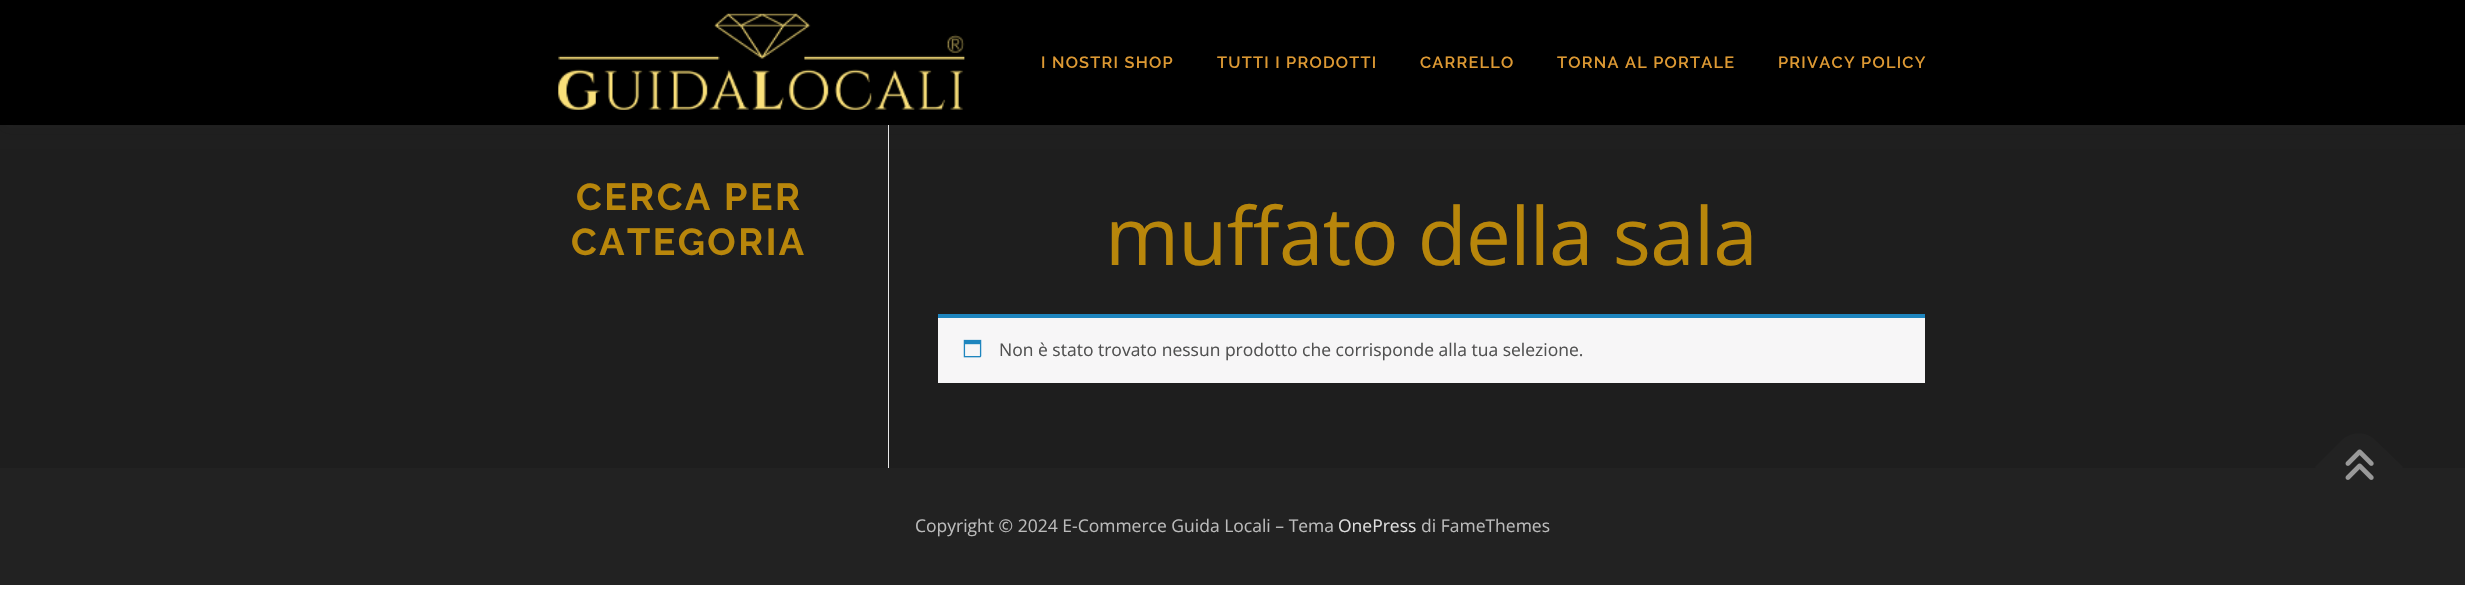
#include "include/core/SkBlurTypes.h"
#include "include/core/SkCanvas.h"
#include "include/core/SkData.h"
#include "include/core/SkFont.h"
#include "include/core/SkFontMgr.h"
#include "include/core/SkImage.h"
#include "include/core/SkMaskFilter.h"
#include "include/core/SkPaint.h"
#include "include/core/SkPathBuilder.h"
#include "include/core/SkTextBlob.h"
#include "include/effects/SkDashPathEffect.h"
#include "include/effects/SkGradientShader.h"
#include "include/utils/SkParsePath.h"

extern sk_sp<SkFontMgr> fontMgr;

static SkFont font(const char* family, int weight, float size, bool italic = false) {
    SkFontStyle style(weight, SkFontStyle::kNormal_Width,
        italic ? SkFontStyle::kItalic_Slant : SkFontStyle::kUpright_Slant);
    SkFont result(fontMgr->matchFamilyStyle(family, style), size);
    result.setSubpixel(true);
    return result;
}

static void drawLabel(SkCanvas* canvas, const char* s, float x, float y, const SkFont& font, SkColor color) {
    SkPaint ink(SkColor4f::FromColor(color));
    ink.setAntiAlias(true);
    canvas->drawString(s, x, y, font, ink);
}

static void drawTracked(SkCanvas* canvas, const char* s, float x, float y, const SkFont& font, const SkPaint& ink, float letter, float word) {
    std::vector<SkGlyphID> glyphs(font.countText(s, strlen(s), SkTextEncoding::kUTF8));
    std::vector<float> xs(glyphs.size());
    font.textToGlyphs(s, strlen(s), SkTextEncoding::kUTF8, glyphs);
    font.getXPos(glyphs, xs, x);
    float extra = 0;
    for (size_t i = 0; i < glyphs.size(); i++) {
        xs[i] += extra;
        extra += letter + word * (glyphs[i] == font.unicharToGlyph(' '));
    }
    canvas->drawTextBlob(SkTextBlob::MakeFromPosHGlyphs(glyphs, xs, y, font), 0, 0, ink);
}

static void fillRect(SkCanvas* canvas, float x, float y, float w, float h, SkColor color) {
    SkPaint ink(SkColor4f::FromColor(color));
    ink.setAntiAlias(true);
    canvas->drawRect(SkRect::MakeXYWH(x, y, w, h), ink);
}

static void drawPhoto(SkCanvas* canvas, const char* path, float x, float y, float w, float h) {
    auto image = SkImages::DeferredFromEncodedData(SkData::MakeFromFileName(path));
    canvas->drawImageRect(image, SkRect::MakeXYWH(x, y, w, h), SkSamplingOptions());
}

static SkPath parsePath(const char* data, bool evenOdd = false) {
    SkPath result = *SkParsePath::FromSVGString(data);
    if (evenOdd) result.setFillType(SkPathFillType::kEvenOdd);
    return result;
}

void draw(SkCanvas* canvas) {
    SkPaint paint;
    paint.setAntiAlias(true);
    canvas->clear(0xFFFFFFFF);
    fillRect(canvas, 0, 125, 2465, 343, 0xFF1E1E1E);
    fillRect(canvas, 888, 125, 1, 343, 0xFFE9E9E9);
    paint.setColor(0x0F323232);
    paint.setMaskFilter(SkMaskFilter::MakeBlur(kNormal_SkBlurStyle, 6));
    canvas->drawRect(SkRect::MakeXYWH(0, 6, 2465, 125), paint);
    paint.setMaskFilter(nullptr);
    fillRect(canvas, 0, 0, 2465, 125, 0xFF000000);
    drawPhoto(canvas, "assets/img1.png", 558, 13, 407, 97);
    SkFont font1 = font("Raleway", 600, 16.25f);
    paint.setColor(0xFFDD9933);
    drawTracked(canvas, "I NOSTRI SHOP", 1041, 68, font1, paint, 1.25f, 0);
    drawTracked(canvas, "TUTTI I PRODOTTI", 1217, 68, font1, paint, 1.25f, 0);
    drawTracked(canvas, "CARRELLO", 1420, 68, font1, paint, 1.25f, 0);
    drawTracked(canvas, "TORNA AL PORTALE", 1557, 68, font1, paint, 1.25f, 0);
    drawTracked(canvas, "PRIVACY POLICY", 1778, 68, font1, paint, 1.25f, 0);
    SkFont font2 = font("Raleway", 700, 37.5f);
    paint.setColor(0xFFB8860B);
    drawTracked(canvas, "CERCA PER", 576, 210, font2, paint, 2.5f, 0);
    drawTracked(canvas, "CATEGORIA", 571, 255, font2, paint, 2.5f, 0);
    SkFont font3 = font("Open Sans", 400, 80);
    drawTracked(canvas, "muffato della sala", 1105, 265, font3, paint, -0.75f, 0);
    fillRect(canvas, 938, 318, 987, 65, 0xFFF7F6F7);
    fillRect(canvas, 938, 314, 987, 4, 0xFF1E85BE);
    drawPhoto(canvas, "assets/img2.png", 963, 339, 19, 19);
    SkFont font4 = font("Open Sans", 400, 17.5f);
    drawLabel(canvas, "Non è stato trovato nessun prodotto che corrisponde alla tua selezione.", 999, 356, font4, 0xFF515151);
    fillRect(canvas, 0, 468, 2465, 117, 0xFF222222);
    paint.setColor(0xFF222222);
    canvas->drawPath(parsePath("M2315 467L2341 441C2351 431 2367 431 2376 441L2403 467L2359 511Z"), paint);
    drawPhoto(canvas, "assets/img3.png", 2345, 449, 29, 31);
    drawLabel(canvas, "Copyright © 2024 E-Commerce Guida Locali – Tema", 915, 532, font4, 0xFFBBBBBB);
    drawLabel(canvas, "OnePress", 1338, 532, font4, 0xFFDDDDDD);
    drawLabel(canvas, "di FameThemes", 1421, 532, font4, 0xFFBBBBBB);
}
